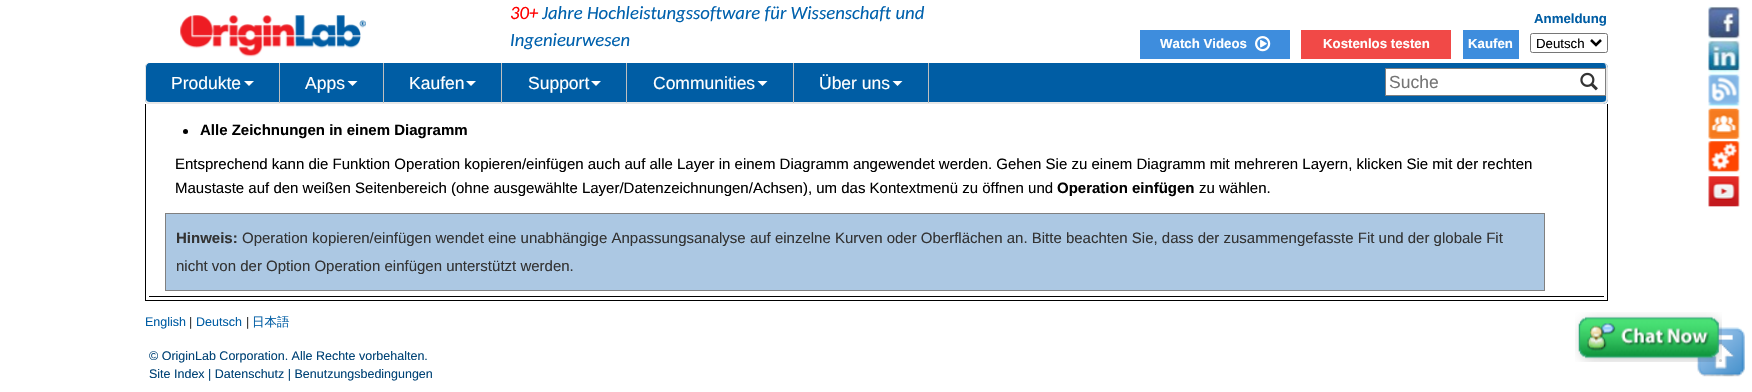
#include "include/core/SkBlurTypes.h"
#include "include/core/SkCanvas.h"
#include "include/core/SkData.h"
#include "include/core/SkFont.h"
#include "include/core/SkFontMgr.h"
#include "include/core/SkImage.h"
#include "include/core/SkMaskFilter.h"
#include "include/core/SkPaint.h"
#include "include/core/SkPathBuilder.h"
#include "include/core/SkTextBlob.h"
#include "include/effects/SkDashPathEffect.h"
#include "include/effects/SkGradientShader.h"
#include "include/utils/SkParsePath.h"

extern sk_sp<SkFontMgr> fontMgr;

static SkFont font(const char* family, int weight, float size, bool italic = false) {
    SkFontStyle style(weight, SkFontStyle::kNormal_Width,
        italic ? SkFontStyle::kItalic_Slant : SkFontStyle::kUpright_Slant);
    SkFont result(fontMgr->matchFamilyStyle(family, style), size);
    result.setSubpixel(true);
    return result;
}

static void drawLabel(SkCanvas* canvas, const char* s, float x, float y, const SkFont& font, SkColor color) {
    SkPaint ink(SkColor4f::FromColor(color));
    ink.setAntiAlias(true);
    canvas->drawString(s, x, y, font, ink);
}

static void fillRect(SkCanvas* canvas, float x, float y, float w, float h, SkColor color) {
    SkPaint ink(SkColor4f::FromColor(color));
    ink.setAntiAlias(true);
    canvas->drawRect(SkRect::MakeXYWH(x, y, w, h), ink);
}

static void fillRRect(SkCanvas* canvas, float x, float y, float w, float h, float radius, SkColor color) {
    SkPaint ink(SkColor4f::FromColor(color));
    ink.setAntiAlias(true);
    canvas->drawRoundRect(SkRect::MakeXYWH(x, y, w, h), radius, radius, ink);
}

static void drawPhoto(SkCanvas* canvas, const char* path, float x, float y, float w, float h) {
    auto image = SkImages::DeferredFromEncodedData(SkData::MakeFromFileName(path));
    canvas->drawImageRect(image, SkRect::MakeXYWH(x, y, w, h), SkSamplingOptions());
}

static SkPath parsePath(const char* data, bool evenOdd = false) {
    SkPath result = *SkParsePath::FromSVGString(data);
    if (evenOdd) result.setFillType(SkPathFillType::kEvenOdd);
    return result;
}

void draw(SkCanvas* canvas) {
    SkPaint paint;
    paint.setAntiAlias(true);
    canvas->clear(0xFFFFFFFF);
    paint.setStroke(true);
    paint.setStrokeWidth(1);
    paint.setColor(0xFF000000);
    canvas->drawRect(SkRect::MakeXYWH(145.5f, -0.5f, 1462, 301), paint);
    fillRect(canvas, 145, 0, 1463, 104, 0xFFFFFFFF);
    drawPhoto(canvas, "assets/img1.png", 180, 15, 186, 42);
    SkFont font1 = font("Carlito", 400, 18.75f, true);
    drawLabel(canvas, "30+", 510, 19, font1, 0xFFFF0000);
    drawLabel(canvas, "Jahre Hochleistungssoftware für Wissenschaft und", 542, 19, font1, 0xFF0061AD);
    drawLabel(canvas, "Ingenieurwesen", 510, 46, font1, 0xFF0061AD);
    SkFont font2 = font("Liberation Sans", 700, 13.25f);
    drawLabel(canvas, "Anmeldung", 1534, 23, font2, 0xFF005DA4);
    fillRect(canvas, 1140, 30, 150, 29, 0xFF3E8DDD);
    drawLabel(canvas, "Watch Videos", 1160, 48, font2, 0xFFFFFFFF);
    drawPhoto(canvas, "assets/img2.png", 1255, 36, 16, 16);
    fillRect(canvas, 1301, 30, 150, 29, 0xFFF14947);
    drawLabel(canvas, "Kostenlos testen", 1323, 48, font2, 0xFFFFFFFF);
    fillRect(canvas, 1463, 30, 56, 29, 0xFF3E8DDD);
    drawLabel(canvas, "Kaufen", 1468, 48, font2, 0xFFFFFFFF);
    paint.setColor(0xFF767676);
    canvas->drawRoundRect(SkRect::MakeXYWH(1530.5f, 33.5f, 77, 19), 2, 2, paint);
    paint.setStrokeWidth(2.5f);
    paint.setColor(0xFF000000);
    canvas->drawPath(parsePath("M1591 40L1596 45L1601 40"), paint);
    SkFont font3 = font("Liberation Sans", 400, 13.25f);
    drawLabel(canvas, "Deutsch", 1536, 48, font3, 0xFF000000);
    fillRRect(canvas, 145, 63, 1463, 41, 5, 0xFF005DA4);
    paint.setStroke(false);
    paint.setColor(0xFFE7E7E7);
    canvas->drawPath(parsePath("M150 62H1602C1605 62 1608 65 1608 68V99C1608 102 1605 104 1602 104H150C147 104 145 102 145 99V68C145 65 147 62 150 62ZM150 62H1602C1605 62 1606 65 1606 68V99C1606 101 1605 102 1602 102H150C148 102 146 101 146 99V68C146 65 148 62 150 62Z", true), paint);
    fillRect(canvas, 279, 63, 1, 40, 0xFFBFBFBF);
    SkFont font4 = font("Liberation Sans", 400, 17.5f);
    drawLabel(canvas, "Produkte", 171, 89, font4, 0xFFFFFFFF);
    paint.setColor(0xFFFFFFFF);
    canvas->drawPath(parsePath("M244 81H254L249 86Z"), paint);
    fillRect(canvas, 383, 63, 1, 40, 0xFFBFBFBF);
    drawLabel(canvas, "Apps", 305, 89, font4, 0xFFFFFFFF);
    canvas->drawPath(parsePath("M347.5 81H357.5L352.5 86Z"), paint);
    fillRect(canvas, 501, 63, 1, 40, 0xFFBFBFBF);
    drawLabel(canvas, "Kaufen", 409, 89, font4, 0xFFFFFFFF);
    canvas->drawPath(parsePath("M466 81H476L471 86Z"), paint);
    fillRect(canvas, 626, 63, 1, 40, 0xFFBFBFBF);
    drawLabel(canvas, "Support", 528, 89, font4, 0xFFFFFFFF);
    canvas->drawPath(parsePath("M591 81H601L596 86Z"), paint);
    fillRect(canvas, 793, 63, 1, 40, 0xFFBFBFBF);
    drawLabel(canvas, "Communities", 653, 89, font4, 0xFFFFFFFF);
    canvas->drawPath(parsePath("M757.5 81H767.5L762.5 86Z"), paint);
    fillRect(canvas, 928, 63, 1, 40, 0xFFBFBFBF);
    drawLabel(canvas, "Über uns", 819, 89, font4, 0xFFFFFFFF);
    canvas->drawPath(parsePath("M892.5 81H902.5L897.5 86Z"), paint);
    fillRect(canvas, 1386, 69, 219, 26, 0xFFFFFFFF);
    fillRect(canvas, 1385, 68, 221, 1, 0xFF808080);
    fillRect(canvas, 1385, 95, 188, 1, 0xFF808080);
    fillRect(canvas, 1385, 68, 1, 28, 0xFF808080);
    drawLabel(canvas, "Suche", 1389, 88, font4, 0xFF757575);
    fillRect(canvas, 1605, 68, 1, 28, 0xFF808080);
    fillRect(canvas, 1573, 95, 33, 1, 0xFF808080);
    drawPhoto(canvas, "assets/img3.png", 1580, 72, 18, 19);
    drawPhoto(canvas, "assets/img4.png", 1708, 6, 33, 33);
    drawPhoto(canvas, "assets/img5.png", 1708, 40, 33, 33);
    drawPhoto(canvas, "assets/img6.png", 1708, 73, 33, 34);
    drawPhoto(canvas, "assets/img7.png", 1708, 107, 33, 33);
    drawPhoto(canvas, "assets/img8.png", 1708, 141, 33, 33);
    drawPhoto(canvas, "assets/img9.png", 1708, 175, 33, 32);
    drawPhoto(canvas, "assets/img10.png", 1696, 327, 49, 50);
    fillRect(canvas, 149, 296, 1455, 1, 0xFF000000);
    paint.setColor(0xFF000000);
    canvas->drawCircle(185.5f, 131.5f, 2.5f, paint);
    SkFont font5 = font("Liberation Sans", 700, 15);
    drawLabel(canvas, "Alle Zeichnungen in einem Diagramm", 200, 135, font5, 0xFF000000);
    SkFont font6 = font("Liberation Sans", 400, 15);
    drawLabel(canvas, "Entsprechend kann die Funktion Operation kopieren/einfügen auch auf alle Layer in einem Diagramm angewendet werden. Gehen Sie zu einem Diagramm mit mehreren Layern, klicken Sie mit der rechten", 175, 169, font6, 0xFF000000);
    drawLabel(canvas, "Maustaste auf den weißen Seitenbereich (ohne ausgewählte Layer/Datenzeichnungen/Achsen), um das Kontextmenü zu öffnen und", 175, 193, font6, 0xFF000000);
    drawLabel(canvas, "Operation einfügen", 1057, 193, font5, 0xFF000000);
    drawLabel(canvas, "zu wählen.", 1199, 193, font6, 0xFF000000);
    fillRect(canvas, 166, 214, 1378, 76, 0xFFACC8E3);
    fillRect(canvas, 165, 213, 1380, 1, 0xFF808080);
    fillRect(canvas, 1544, 213, 1, 78, 0xFF808080);
    fillRect(canvas, 165, 290, 1380, 1, 0xFF808080);
    fillRect(canvas, 165, 213, 1, 78, 0xFF808080);
    drawLabel(canvas, "Hinweis:", 176, 243, font5, 0xFF333333);
    drawLabel(canvas, "Operation kopieren/einfügen wendet eine unabhängige Anpassungsanalyse auf einzelne Kurven oder Oberflächen an. Bitte beachten Sie, dass der zusammengefasste Fit und der globale Fit", 242, 243, font6, 0xFF333333);
    drawLabel(canvas, "nicht von der Option Operation einfügen unterstützt werden.", 176, 271, font6, 0xFF333333);
    SkFont font7 = font("Liberation Sans", 400, 12.5f);
    drawLabel(canvas, "English", 145, 326, font7, 0xFF005DA4);
    drawLabel(canvas, "|", 189, 326, font7, 0xFF333333);
    drawLabel(canvas, "Deutsch", 196, 326, font7, 0xFF005DA4);
    drawLabel(canvas, "|", 246, 326, font7, 0xFF333333);
    SkFont font8 = font("WenQuanYi Zen Hei", 500, 12.5f);
    drawLabel(canvas, "日本語", 252, 326, font8, 0xFF005DA4);
    drawPhoto(canvas, "assets/img11.png", 1575, 312, 147, 50);
    drawLabel(canvas, "© OriginLab Corporation. Alle Rechte vorbehalten.", 149, 360, font7, 0xFF004376);
    drawLabel(canvas, "Site Index | Datenschutz | Benutzungsbedingungen", 149, 378, font7, 0xFF004376);
    paint.setColor(0xFFCCCCCC);
    canvas->drawCircle(1720.5f, 360.5f, 1.5f, paint);
}
